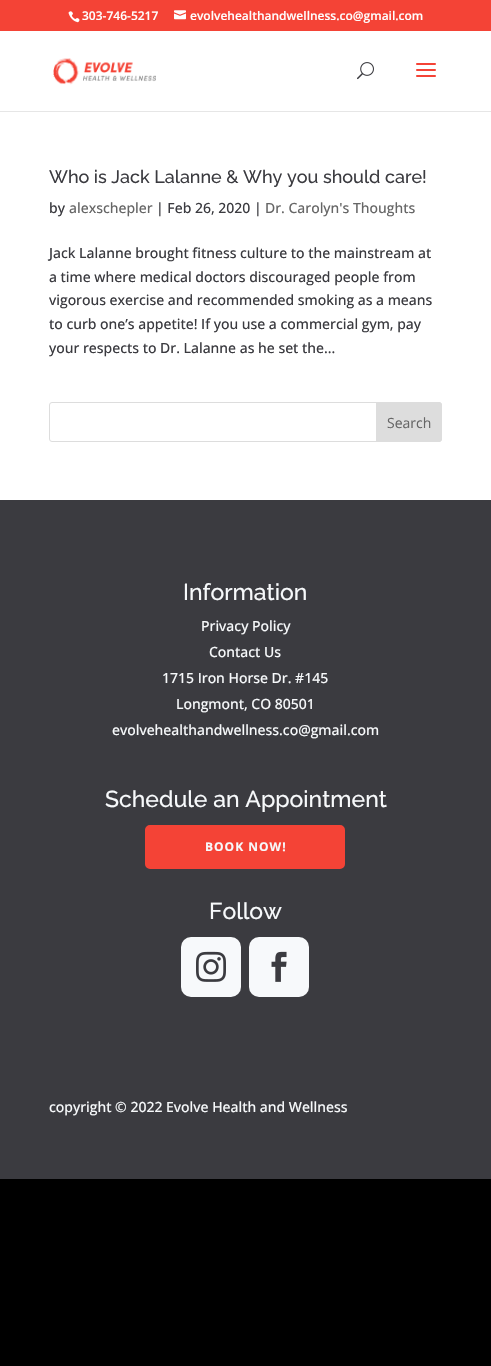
#include "include/core/SkBlurTypes.h"
#include "include/core/SkCanvas.h"
#include "include/core/SkData.h"
#include "include/core/SkFont.h"
#include "include/core/SkFontMgr.h"
#include "include/core/SkImage.h"
#include "include/core/SkMaskFilter.h"
#include "include/core/SkPaint.h"
#include "include/core/SkPathBuilder.h"
#include "include/core/SkTextBlob.h"
#include "include/effects/SkDashPathEffect.h"
#include "include/effects/SkGradientShader.h"
#include "include/utils/SkParsePath.h"

extern sk_sp<SkFontMgr> fontMgr;

static SkFont font(const char* family, int weight, float size, bool italic = false) {
    SkFontStyle style(weight, SkFontStyle::kNormal_Width,
        italic ? SkFontStyle::kItalic_Slant : SkFontStyle::kUpright_Slant);
    SkFont result(fontMgr->matchFamilyStyle(family, style), size);
    result.setSubpixel(true);
    return result;
}

static void drawLabel(SkCanvas* canvas, const char* s, float x, float y, const SkFont& font, SkColor color) {
    SkPaint ink(SkColor4f::FromColor(color));
    ink.setAntiAlias(true);
    canvas->drawString(s, x, y, font, ink);
}

static void drawTracked(SkCanvas* canvas, const char* s, float x, float y, const SkFont& font, const SkPaint& ink, float letter, float word) {
    std::vector<SkGlyphID> glyphs(font.countText(s, strlen(s), SkTextEncoding::kUTF8));
    std::vector<float> xs(glyphs.size());
    font.textToGlyphs(s, strlen(s), SkTextEncoding::kUTF8, glyphs);
    font.getXPos(glyphs, xs, x);
    float extra = 0;
    for (size_t i = 0; i < glyphs.size(); i++) {
        xs[i] += extra;
        extra += letter + word * (glyphs[i] == font.unicharToGlyph(' '));
    }
    canvas->drawTextBlob(SkTextBlob::MakeFromPosHGlyphs(glyphs, xs, y, font), 0, 0, ink);
}

static void fillRect(SkCanvas* canvas, float x, float y, float w, float h, SkColor color) {
    SkPaint ink(SkColor4f::FromColor(color));
    ink.setAntiAlias(true);
    canvas->drawRect(SkRect::MakeXYWH(x, y, w, h), ink);
}

static void fillRRect(SkCanvas* canvas, float x, float y, float w, float h, float radius, SkColor color) {
    SkPaint ink(SkColor4f::FromColor(color));
    ink.setAntiAlias(true);
    canvas->drawRoundRect(SkRect::MakeXYWH(x, y, w, h), radius, radius, ink);
}

static void drawPhoto(SkCanvas* canvas, const char* path, float x, float y, float w, float h) {
    auto image = SkImages::DeferredFromEncodedData(SkData::MakeFromFileName(path));
    canvas->drawImageRect(image, SkRect::MakeXYWH(x, y, w, h), SkSamplingOptions());
}

static SkPath parsePath(const char* data, bool evenOdd = false) {
    SkPath result = *SkParsePath::FromSVGString(data);
    if (evenOdd) result.setFillType(SkPathFillType::kEvenOdd);
    return result;
}

void draw(SkCanvas* canvas) {
    SkPaint paint;
    paint.setAntiAlias(true);
    canvas->clear(0xFF000000);
    fillRect(canvas, 0, 0, 491, 31, 0xFFF44336);
    drawPhoto(canvas, "assets/img1.png", 68, 11, 12, 12);
    SkFont font1 = font("Open Sans", 600, 12);
    drawLabel(canvas, "303-746-5217", 82, 20, font1, 0xFFFFFFFF);
    drawPhoto(canvas, "assets/img2.png", 174, 10, 12, 10);
    drawLabel(canvas, "evolvehealthandwellness.co@gmail.com", 190, 20, font1, 0xFFFFFFFF);
    fillRect(canvas, 0, 111, 491, 1, 0xFFE6E6E6);
    fillRect(canvas, 0, 31, 491, 80, 0xFFFFFFFF);
    drawPhoto(canvas, "assets/img3.png", 53, 58, 103, 27);
    drawPhoto(canvas, "assets/img4.png", 357, 62, 17, 18);
    drawPhoto(canvas, "assets/img5.png", 416, 63, 20, 14);
    fillRect(canvas, 0, 112, 491, 388, 0xFFFFFFFF);
    SkFont font2 = font("Raleway", 100, 18);
    drawLabel(canvas, "Who is Jack Lalanne & Why you should care!", 49, 183, font2, 0xFF3B3B40);
    SkFont font3 = font("Open Sans", 500, 14);
    drawLabel(canvas, "by", 49, 213, font3, 0xFF3B3B40);
    drawLabel(canvas, "alexschepler", 69, 213, font3, 0xFF666666);
    drawLabel(canvas, "| Feb 26, 2020 |", 156, 213, font3, 0xFF3B3B40);
    drawLabel(canvas, "Dr. Carolyn's Thoughts", 265, 213, font3, 0xFF666666);
    drawLabel(canvas, "Jack Lalanne brought fitness culture to the mainstream at", 49, 258, font3, 0xFF3B3B40);
    drawLabel(canvas, "a time where medical doctors discouraged people from", 49, 282, font3, 0xFF3B3B40);
    drawLabel(canvas, "vigorous exercise and recommended smoking as a means", 49, 305, font3, 0xFF3B3B40);
    drawLabel(canvas, "to curb one’s appetite! If you use a commercial gym, pay", 49, 329, font3, 0xFF3B3B40);
    drawLabel(canvas, "your respects to Dr. Lalanne as he set the...", 49, 353, font3, 0xFF3B3B40);
    paint.setStroke(true);
    paint.setStrokeWidth(1);
    paint.setColor(0xFFDDDDDD);
    canvas->drawRoundRect(SkRect::MakeXYWH(49.5f, 402.5f, 392, 39), 2.5f, 2.5f, paint);
    paint.setStroke(false);
    canvas->drawPath(parsePath("M376.5 402.5H439C440.5 402.5 441.5 403.5 441.5 405V439C441.5 440.5 440.5 441.5 439 441.5H376.5Z"), paint);
    paint.setStroke(true);
    canvas->drawPath(parsePath("M376.5 402.5H439C440.5 402.5 441.5 403.5 441.5 405V439C441.5 440.5 440.5 441.5 439 441.5H376.5Z"), paint);
    SkFont font4 = font("Open Sans", 400, 14);
    drawLabel(canvas, "Search", 387, 428, font4, 0xFF666666);
    fillRect(canvas, 0, 500, 491, 679, 0xFF3B3B40);
    SkFont font5 = font("Raleway", 100, 23);
    drawLabel(canvas, "Information", 183, 600, font5, 0xFFF7F9FB);
    drawLabel(canvas, "Privacy Policy", 201, 631, font3, 0xFFF7F9FB);
    drawLabel(canvas, "Contact Us", 209, 657, font3, 0xFFF7F9FB);
    drawLabel(canvas, "1715 Iron Horse Dr. #145", 162, 683, font3, 0xFFF7F9FB);
    drawLabel(canvas, "Longmont, CO 80501", 176, 709, font3, 0xFFF7F9FB);
    drawLabel(canvas, "evolvehealthandwellness.co@gmail.com", 112, 735, font3, 0xFFF7F9FB);
    drawLabel(canvas, "Schedule an Appointment", 105, 807, font5, 0xFFF7F9FB);
    paint.setStroke(false);
    paint.setColor(0xFFF44336);
    canvas->drawRoundRect(SkRect::MakeXYWH(146, 826, 198, 42), 4, 4, paint);
    paint.setStroke(true);
    paint.setStrokeWidth(2);
    canvas->drawRoundRect(SkRect::MakeXYWH(146, 826, 198, 42), 4, 4, paint);
    SkFont font6 = font("Open Sans", 700, 12);
    paint.setStroke(false);
    paint.setColor(0xFFF7F9FB);
    drawTracked(canvas, "BOOK NOW!", 205, 851, font6, paint, 1, 0);
    drawLabel(canvas, "Follow", 209, 919, font5, 0xFFF7F9FB);
    fillRRect(canvas, 181, 937, 60, 60, 10, 0xFFF7F9FB);
    drawPhoto(canvas, "assets/img6.png", 196, 951, 30, 31);
    fillRRect(canvas, 249, 937, 60, 60, 10, 0xFFF7F9FB);
    drawPhoto(canvas, "assets/img7.png", 271, 951, 16, 31);
    drawLabel(canvas, "copyright © 2022 Evolve Health and Wellness", 49, 1112, font3, 0xFFF7F9FB);
}
